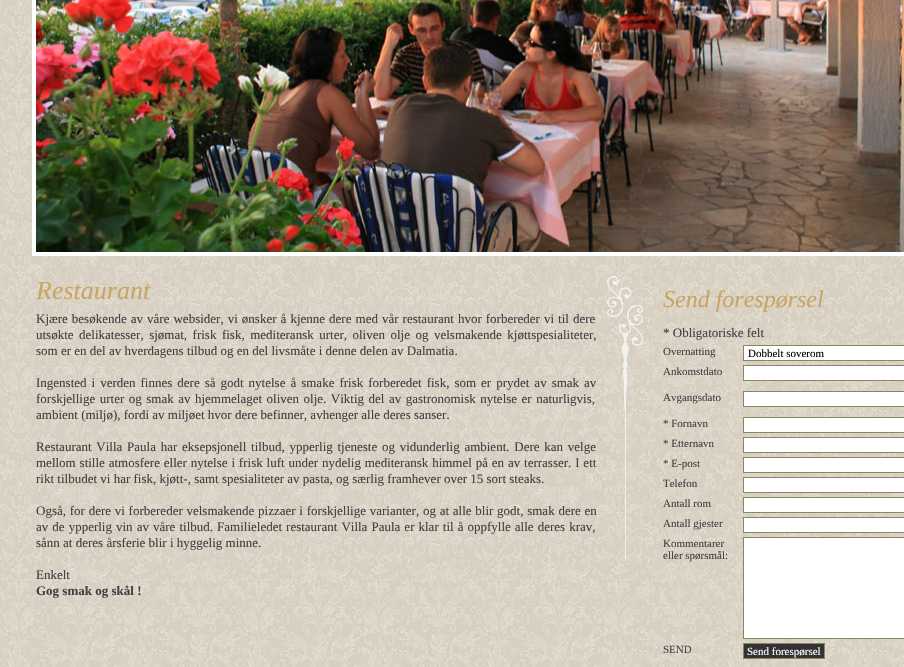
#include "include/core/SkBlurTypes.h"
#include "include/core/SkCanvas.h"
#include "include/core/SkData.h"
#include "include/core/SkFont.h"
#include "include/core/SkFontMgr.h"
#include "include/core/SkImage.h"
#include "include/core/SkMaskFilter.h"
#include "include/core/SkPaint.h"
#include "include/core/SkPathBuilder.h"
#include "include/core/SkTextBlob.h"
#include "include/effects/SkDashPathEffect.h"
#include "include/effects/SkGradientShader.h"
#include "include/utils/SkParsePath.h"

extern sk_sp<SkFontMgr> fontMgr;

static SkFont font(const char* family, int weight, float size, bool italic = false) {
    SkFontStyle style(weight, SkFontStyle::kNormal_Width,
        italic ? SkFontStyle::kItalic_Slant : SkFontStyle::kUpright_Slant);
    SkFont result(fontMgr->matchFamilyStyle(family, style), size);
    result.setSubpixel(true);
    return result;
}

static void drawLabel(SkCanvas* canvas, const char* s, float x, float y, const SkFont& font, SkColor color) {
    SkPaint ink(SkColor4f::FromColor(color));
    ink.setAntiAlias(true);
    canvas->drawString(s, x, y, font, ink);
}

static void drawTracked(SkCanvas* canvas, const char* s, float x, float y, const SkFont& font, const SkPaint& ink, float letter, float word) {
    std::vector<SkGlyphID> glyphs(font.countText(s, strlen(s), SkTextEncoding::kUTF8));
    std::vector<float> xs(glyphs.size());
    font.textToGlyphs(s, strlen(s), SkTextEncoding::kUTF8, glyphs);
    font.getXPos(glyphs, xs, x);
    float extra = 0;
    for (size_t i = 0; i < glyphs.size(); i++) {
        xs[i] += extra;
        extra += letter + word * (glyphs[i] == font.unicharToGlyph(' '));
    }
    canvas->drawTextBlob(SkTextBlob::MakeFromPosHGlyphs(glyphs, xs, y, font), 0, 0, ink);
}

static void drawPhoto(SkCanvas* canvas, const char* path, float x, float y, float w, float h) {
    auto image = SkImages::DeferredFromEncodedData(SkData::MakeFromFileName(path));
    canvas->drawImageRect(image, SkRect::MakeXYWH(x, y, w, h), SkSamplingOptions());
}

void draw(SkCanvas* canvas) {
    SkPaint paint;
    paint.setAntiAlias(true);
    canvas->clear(0xFFFFFFFF);
    drawPhoto(canvas, "assets/img1.png", 0, 0, 904, 667);
    paint.setStroke(true);
    paint.setStrokeWidth(4);
    paint.setColor(0xFFFFFFFF);
    canvas->drawRect(SkRect::MakeXYWH(34, -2, 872, 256), paint);
    drawPhoto(canvas, "assets/img2.png", 36, 0, 868, 252);
    drawPhoto(canvas, "assets/img3.png", 607, 276, 36, 285);
    SkFont font1 = font("Liberation Serif", 400, 26, true);
    drawLabel(canvas, "Restaurant", 36, 299, font1, 0xFFC9A464);
    SkFont font2 = font("Liberation Serif", 400, 13);
    paint.setStroke(false);
    paint.setColor(0xFF414042);
    drawTracked(canvas, "Kjære besøkende av våre websider, vi ønsker å kjenne dere med vår restaurant hvor forbereder vi til dere", 36, 323, font2, paint, 0, 0.8f);
    drawTracked(canvas, "utsøkte delikatesser, sjømat, frisk fisk, mediteransk urter, oliven olje og velsmakende kjøttspesialiteter,", 36, 339, font2, paint, 0, 2.25f);
    drawLabel(canvas, "som er en del av hverdagens tilbud og en del livsmåte i denne delen av Dalmatia.", 36, 355, font2, 0xFF414042);
    drawTracked(canvas, "Ingensted i verden finnes dere så godt nytelse å smake frisk forberedet fisk, som er prydet av smak av", 36, 387, font2, paint, 0, 1.75f);
    drawTracked(canvas, "forskjellige urter og smak av hjemmelaget oliven olje. Viktig del av gastronomisk nytelse er naturligvis,", 36, 403, font2, paint, 0, 1.25f);
    drawLabel(canvas, "ambient (miljø), fordi av miljøet hvor dere befinner, avhenger alle deres sanser.", 36, 419, font2, 0xFF414042);
    drawTracked(canvas, "Restaurant Villa Paula har eksepsjonell tilbud, ypperlig tjeneste og vidunderlig ambient. Dere kan velge", 36, 451, font2, paint, 0, 1.5f);
    drawTracked(canvas, "mellom stille atmosfere eller nytelse i frisk luft under nydelig mediteransk himmel på en av terrasser. I ett", 36, 467, font2, paint, 0, 0.6f);
    drawLabel(canvas, "rikt tilbudet vi har fisk, kjøtt-, samt spesialiteter av pasta, og særlig framhever over 15 sort steaks.", 36, 483, font2, 0xFF414042);
    drawTracked(canvas, "Også, for dere vi forbereder velsmakende pizzaer i forskjellige varianter, og at alle blir godt, smak dere en", 36, 515, font2, paint, 0, 0.5f);
    drawTracked(canvas, "av de ypperlig vin av våre tilbud. Familieledet restaurant Villa Paula er klar til å oppfylle alle deres krav,", 36, 531, font2, paint, 0, 0.8f);
    drawLabel(canvas, "sånn at deres årsferie blir i hyggelig minne.", 36, 547, font2, 0xFF414042);
    drawLabel(canvas, "Enkelt", 36, 579, font2, 0xFF414042);
    SkFont font3 = font("Liberation Serif", 700, 13);
    drawLabel(canvas, "Gog smak og skål !", 36, 595, font3, 0xFF414042);
    SkFont font4 = font("Liberation Serif", 400, 24, true);
    drawLabel(canvas, "Send forespørsel", 663, 307, font4, 0xFFC9A464);
    drawLabel(canvas, "* Obligatoriske felt", 663, 337, font2, 0xFF414042);
    SkFont font5 = font("Liberation Serif", 400, 11);
    drawLabel(canvas, "Overnatting", 663, 355, font5, 0xFF414042);
    paint.setColor(0xFFFFFFFF);
    canvas->drawRect(SkRect::MakeXYWH(743.5f, 345.5f, 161, 15), paint);
    paint.setStroke(true);
    paint.setStrokeWidth(1);
    paint.setColor(0xFF898762);
    canvas->drawRect(SkRect::MakeXYWH(743.5f, 345.5f, 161, 15), paint);
    drawLabel(canvas, "Dobbelt soverom", 748, 357, font5, 0xFF000000);
    drawLabel(canvas, "Ankomstdato", 663, 375, font5, 0xFF414042);
    paint.setStroke(false);
    paint.setColor(0xFFFFFFFF);
    canvas->drawRect(SkRect::MakeXYWH(743.5f, 365.5f, 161, 15), paint);
    paint.setStroke(true);
    paint.setColor(0xFF898762);
    canvas->drawRect(SkRect::MakeXYWH(743.5f, 365.5f, 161, 15), paint);
    drawLabel(canvas, "Avgangsdato", 663, 401, font5, 0xFF414042);
    paint.setStroke(false);
    paint.setColor(0xFFFFFFFF);
    canvas->drawRect(SkRect::MakeXYWH(743.5f, 391.5f, 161, 15), paint);
    paint.setStroke(true);
    paint.setColor(0xFF898762);
    canvas->drawRect(SkRect::MakeXYWH(743.5f, 391.5f, 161, 15), paint);
    drawLabel(canvas, "* Fornavn", 663, 427, font5, 0xFF414042);
    paint.setStroke(false);
    paint.setColor(0xFFFFFFFF);
    canvas->drawRect(SkRect::MakeXYWH(743.5f, 417.5f, 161, 15), paint);
    paint.setStroke(true);
    paint.setColor(0xFF898762);
    canvas->drawRect(SkRect::MakeXYWH(743.5f, 417.5f, 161, 15), paint);
    drawLabel(canvas, "* Etternavn", 663, 447, font5, 0xFF414042);
    paint.setStroke(false);
    paint.setColor(0xFFFFFFFF);
    canvas->drawRect(SkRect::MakeXYWH(743.5f, 437.5f, 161, 15), paint);
    paint.setStroke(true);
    paint.setColor(0xFF898762);
    canvas->drawRect(SkRect::MakeXYWH(743.5f, 437.5f, 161, 15), paint);
    drawLabel(canvas, "* E-post", 663, 467, font5, 0xFF414042);
    paint.setStroke(false);
    paint.setColor(0xFFFFFFFF);
    canvas->drawRect(SkRect::MakeXYWH(743.5f, 457.5f, 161, 15), paint);
    paint.setStroke(true);
    paint.setColor(0xFF898762);
    canvas->drawRect(SkRect::MakeXYWH(743.5f, 457.5f, 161, 15), paint);
    drawLabel(canvas, "Telefon", 663, 487, font5, 0xFF414042);
    paint.setStroke(false);
    paint.setColor(0xFFFFFFFF);
    canvas->drawRect(SkRect::MakeXYWH(743.5f, 477.5f, 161, 15), paint);
    paint.setStroke(true);
    paint.setColor(0xFF898762);
    canvas->drawRect(SkRect::MakeXYWH(743.5f, 477.5f, 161, 15), paint);
    drawLabel(canvas, "Antall rom", 663, 507, font5, 0xFF414042);
    paint.setStroke(false);
    paint.setColor(0xFFFFFFFF);
    canvas->drawRect(SkRect::MakeXYWH(743.5f, 497.5f, 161, 15), paint);
    paint.setStroke(true);
    paint.setColor(0xFF898762);
    canvas->drawRect(SkRect::MakeXYWH(743.5f, 497.5f, 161, 15), paint);
    drawLabel(canvas, "Antall gjester", 663, 527, font5, 0xFF414042);
    paint.setStroke(false);
    paint.setColor(0xFFFFFFFF);
    canvas->drawRect(SkRect::MakeXYWH(743.5f, 517.5f, 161, 15), paint);
    paint.setStroke(true);
    paint.setColor(0xFF898762);
    canvas->drawRect(SkRect::MakeXYWH(743.5f, 517.5f, 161, 15), paint);
    drawLabel(canvas, "Kommentarer", 663, 547, font5, 0xFF414042);
    drawLabel(canvas, "eller spørsmål:", 663, 559, font5, 0xFF414042);
    paint.setStroke(false);
    paint.setColor(0xFFFFFFFF);
    canvas->drawRect(SkRect::MakeXYWH(743.5f, 537.5f, 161, 101), paint);
    paint.setStroke(true);
    paint.setColor(0xFF898762);
    canvas->drawRect(SkRect::MakeXYWH(743.5f, 537.5f, 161, 101), paint);
    drawLabel(canvas, "SEND", 663, 653, font5, 0xFF414042);
    paint.setStroke(false);
    paint.setColor(0xFF333333);
    canvas->drawRect(SkRect::MakeXYWH(743.5f, 643.5f, 81, 15), paint);
    paint.setStroke(true);
    paint.setColor(0xFF898762);
    canvas->drawRect(SkRect::MakeXYWH(743.5f, 643.5f, 81, 15), paint);
    drawLabel(canvas, "Send forespørsel", 747, 655, font5, 0xFFFAFAFA);
}
